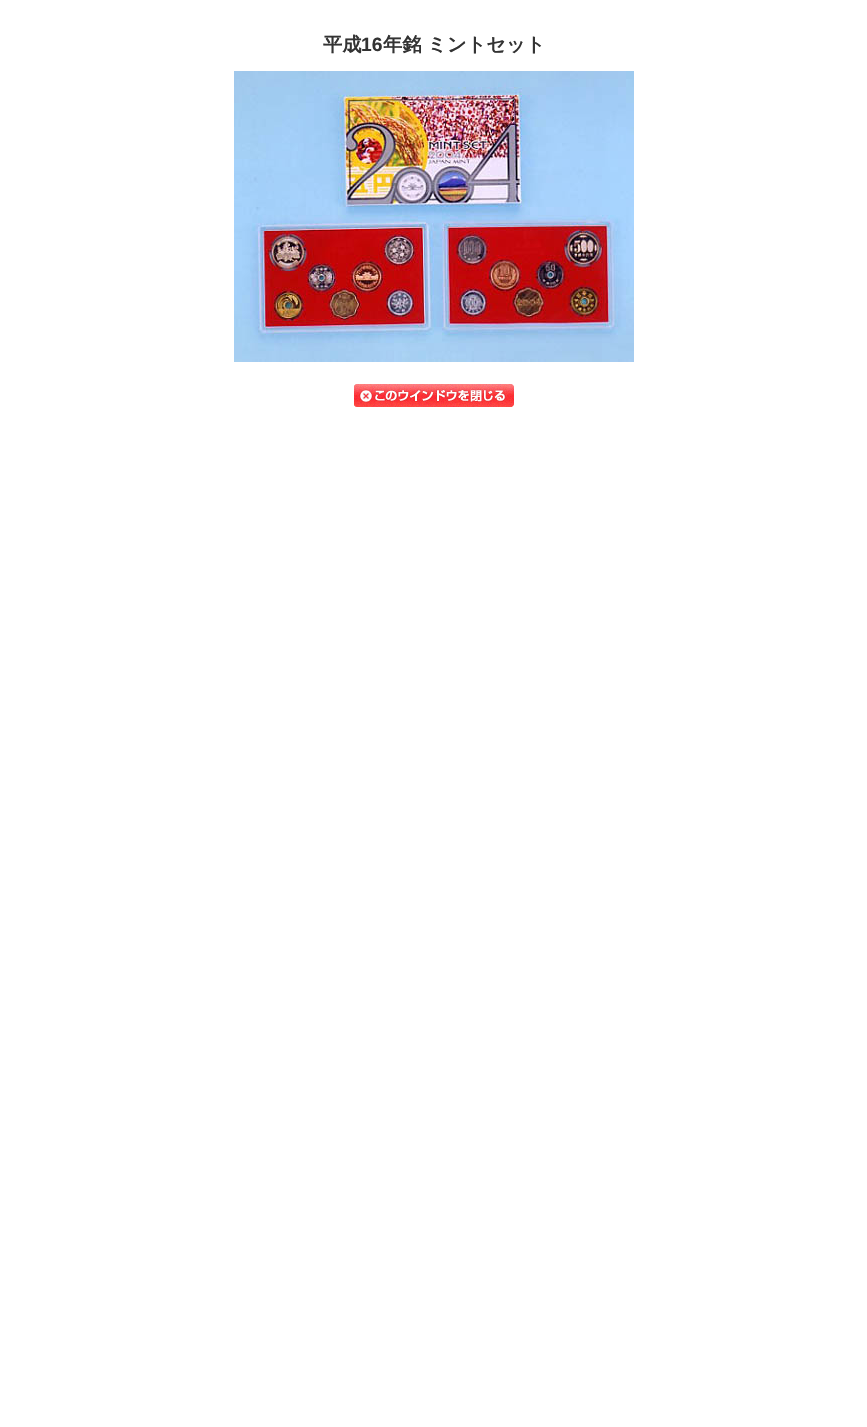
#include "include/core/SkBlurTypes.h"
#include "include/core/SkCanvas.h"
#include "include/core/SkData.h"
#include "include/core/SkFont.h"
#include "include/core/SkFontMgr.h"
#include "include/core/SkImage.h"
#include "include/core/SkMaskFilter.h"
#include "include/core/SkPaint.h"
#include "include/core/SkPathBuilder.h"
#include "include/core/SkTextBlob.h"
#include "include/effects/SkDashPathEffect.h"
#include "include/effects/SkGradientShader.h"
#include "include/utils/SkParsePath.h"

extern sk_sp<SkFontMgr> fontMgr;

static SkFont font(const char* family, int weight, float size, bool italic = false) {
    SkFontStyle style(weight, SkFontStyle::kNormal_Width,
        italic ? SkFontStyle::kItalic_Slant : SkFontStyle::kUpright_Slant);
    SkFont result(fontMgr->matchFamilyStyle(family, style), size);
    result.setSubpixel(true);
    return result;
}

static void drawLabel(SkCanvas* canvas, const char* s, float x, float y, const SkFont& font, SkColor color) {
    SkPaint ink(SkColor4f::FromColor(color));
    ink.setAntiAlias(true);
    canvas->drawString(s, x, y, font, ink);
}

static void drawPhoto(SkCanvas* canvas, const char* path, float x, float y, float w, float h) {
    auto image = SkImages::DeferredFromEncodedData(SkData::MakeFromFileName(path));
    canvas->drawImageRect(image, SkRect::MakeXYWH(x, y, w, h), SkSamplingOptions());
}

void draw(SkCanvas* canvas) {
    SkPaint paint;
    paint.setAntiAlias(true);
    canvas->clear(0xFFFFFFFF);
    SkFont font1 = font("WenQuanYi Zen Hei", 700, 19.25f);
    drawLabel(canvas, "平成", 323, 51, font1, 0xFF333333);
    SkFont font2 = font("Liberation Sans", 700, 19.25f);
    drawLabel(canvas, "16", 361, 51, font2, 0xFF333333);
    drawLabel(canvas, "年銘 ミントセット", 383, 51, font1, 0xFF333333);
    drawPhoto(canvas, "assets/img1.png", 234, 71, 400, 291);
    drawPhoto(canvas, "assets/img2.png", 354, 384, 160, 23);
}
